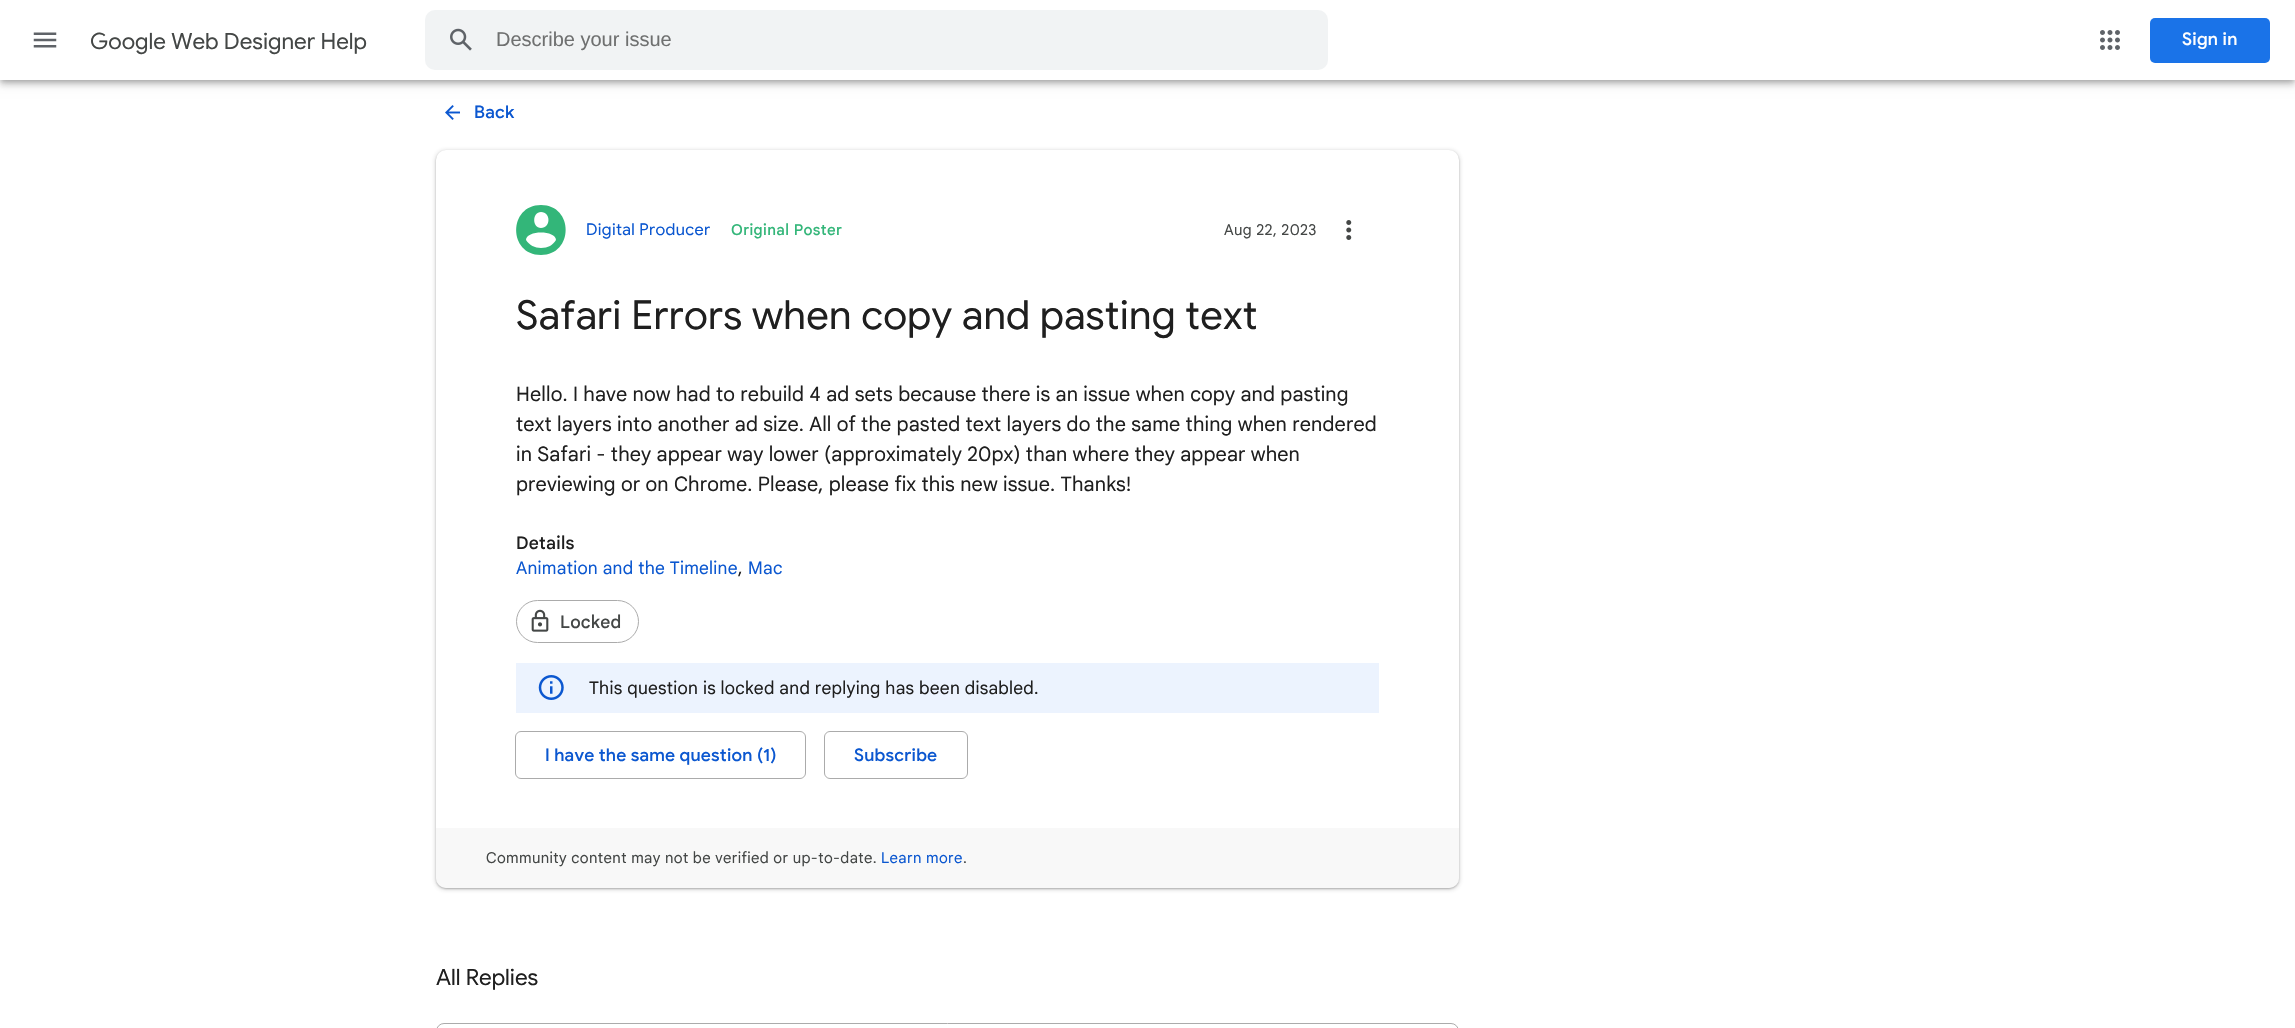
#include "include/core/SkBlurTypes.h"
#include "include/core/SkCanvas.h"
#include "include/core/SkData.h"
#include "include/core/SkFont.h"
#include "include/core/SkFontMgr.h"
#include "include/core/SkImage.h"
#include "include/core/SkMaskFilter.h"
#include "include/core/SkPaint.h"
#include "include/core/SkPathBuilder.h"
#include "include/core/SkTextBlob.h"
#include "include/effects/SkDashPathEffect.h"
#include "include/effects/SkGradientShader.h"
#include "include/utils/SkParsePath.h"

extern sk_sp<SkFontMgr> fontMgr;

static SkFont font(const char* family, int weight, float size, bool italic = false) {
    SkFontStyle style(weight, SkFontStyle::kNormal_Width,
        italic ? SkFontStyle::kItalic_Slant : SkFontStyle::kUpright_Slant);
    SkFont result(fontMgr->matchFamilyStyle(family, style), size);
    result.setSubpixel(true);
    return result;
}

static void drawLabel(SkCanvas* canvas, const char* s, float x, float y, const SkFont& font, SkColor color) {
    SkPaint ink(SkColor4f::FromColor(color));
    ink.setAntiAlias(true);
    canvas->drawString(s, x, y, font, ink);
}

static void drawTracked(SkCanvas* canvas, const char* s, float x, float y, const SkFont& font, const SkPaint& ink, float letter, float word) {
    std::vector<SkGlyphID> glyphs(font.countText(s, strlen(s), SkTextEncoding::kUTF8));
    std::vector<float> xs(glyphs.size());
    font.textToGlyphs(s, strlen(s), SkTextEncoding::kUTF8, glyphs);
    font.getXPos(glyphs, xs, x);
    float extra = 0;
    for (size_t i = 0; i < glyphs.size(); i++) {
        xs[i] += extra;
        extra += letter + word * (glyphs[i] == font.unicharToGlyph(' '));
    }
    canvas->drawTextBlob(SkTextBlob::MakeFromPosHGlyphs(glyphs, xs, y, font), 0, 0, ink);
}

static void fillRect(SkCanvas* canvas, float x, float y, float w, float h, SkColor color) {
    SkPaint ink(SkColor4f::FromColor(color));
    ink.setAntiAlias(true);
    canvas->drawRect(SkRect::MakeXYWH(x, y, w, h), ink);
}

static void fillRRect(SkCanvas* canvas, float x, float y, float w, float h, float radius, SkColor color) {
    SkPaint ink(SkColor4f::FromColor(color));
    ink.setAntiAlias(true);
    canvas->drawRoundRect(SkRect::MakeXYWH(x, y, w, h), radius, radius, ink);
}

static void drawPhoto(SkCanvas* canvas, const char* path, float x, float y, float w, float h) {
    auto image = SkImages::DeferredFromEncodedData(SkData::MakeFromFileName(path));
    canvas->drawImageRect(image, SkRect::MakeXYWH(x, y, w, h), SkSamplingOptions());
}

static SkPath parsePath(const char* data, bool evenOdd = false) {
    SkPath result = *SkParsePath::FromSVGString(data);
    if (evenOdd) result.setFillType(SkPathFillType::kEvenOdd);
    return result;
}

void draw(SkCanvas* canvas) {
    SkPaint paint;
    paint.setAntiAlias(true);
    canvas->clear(0xFFFFFFFF);
    paint.setColor(0x33000000);
    paint.setMaskFilter(SkMaskFilter::MakeBlur(kNormal_SkBlurStyle, 2.5f));
    canvas->drawRect(SkRect::MakeXYWH(1, 4, 2293, 77), paint);
    paint.setMaskFilter(nullptr);
    paint.setColor(0x1F000000);
    paint.setMaskFilter(SkMaskFilter::MakeBlur(kNormal_SkBlurStyle, 6));
    canvas->drawRect(SkRect::MakeXYWH(0, 1, 2295, 80), paint);
    paint.setMaskFilter(nullptr);
    paint.setColor(0x24000000);
    paint.setMaskFilter(SkMaskFilter::MakeBlur(kNormal_SkBlurStyle, 3));
    canvas->drawRect(SkRect::MakeXYWH(0, 5, 2295, 80), paint);
    paint.setMaskFilter(nullptr);
    fillRect(canvas, 0, 0, 2295, 80, 0xFFFFFFFF);
    drawPhoto(canvas, "assets/img1.png", 33, 32, 24, 16);
    SkFont font1 = font("Google Sans", 400, 22.5f);
    drawLabel(canvas, "Google Web Designer Help", 90, 49, font1, 0xFF444746);
    fillRRect(canvas, 425, 10, 903, 60, 10, 0xFFF1F3F4);
    drawPhoto(canvas, "assets/img2.png", 450, 28, 22, 23);
    SkFont font2 = font("Liberation Sans", 400, 20);
    drawLabel(canvas, "Describe your issue", 496, 46, font2, 0xFF6F7070);
    drawPhoto(canvas, "assets/img3.png", 2100, 30, 20, 20);
    fillRRect(canvas, 2150, 18, 120, 45, 5, 0xFF1A73E8);
    SkFont font3 = font("Google Sans", 500, 17.5f);
    paint.setColor(0xFFFFFFFF);
    drawTracked(canvas, "Sign in", 2182, 45, font3, paint, 0.25f, 0);
    drawPhoto(canvas, "assets/img4.png", 445, 105, 15, 15);
    paint.setColor(0xFF0B57D0);
    drawTracked(canvas, "Back", 474, 118, font3, paint, 0.2f, 0);
    paint.setColor(0x26303030);
    paint.setMaskFilter(SkMaskFilter::MakeBlur(kNormal_SkBlurStyle, 2));
    canvas->drawRoundRect(SkRect::MakeXYWH(435, 150, 1025, 740), 11, 11, paint);
    paint.setMaskFilter(nullptr);
    paint.setColor(0x4D303030);
    paint.setMaskFilter(SkMaskFilter::MakeBlur(kNormal_SkBlurStyle, 1));
    canvas->drawRoundRect(SkRect::MakeXYWH(436, 151, 1023, 738), 10, 10, paint);
    paint.setMaskFilter(nullptr);
    fillRRect(canvas, 436, 150, 1023, 738, 10, 0xFFFFFFFF);
    paint.setColor(0xFF33B679);
    canvas->drawPath(parsePath("M541 205C508 205 508 255 541 255C574 255 574 205 541 205ZM541 212C532 212 532 228 541 228C551 228 551 212 541 212ZM541 248C548 248 553 245 556 240C556 230 526 230 526 240C529 245 535 248 541 248Z", true), paint);
    SkFont font4 = font("Google Sans", 400, 16.25f);
    paint.setColor(0xFF0B57D0);
    drawTracked(canvas, "Digital Producer", 586, 235, font4, paint, 0.38f, 0);
    SkFont font5 = font("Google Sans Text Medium", 500, 15);
    paint.setColor(0xFF33B679);
    drawTracked(canvas, "Original Poster", 731, 235, font5, paint, 0.38f, 0);
    SkFont font6 = font("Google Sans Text", 400, 15);
    paint.setColor(0xFF444746);
    drawTracked(canvas, "Aug 22, 2023", 1224, 235, font6, paint, 0.38f, 0);
    drawPhoto(canvas, "assets/img5.png", 1346, 220, 6, 20);
    SkFont font7 = font("Google Sans", 400, 40);
    paint.setColor(0xFF1F1F1F);
    drawTracked(canvas, "Safari Errors when copy and pasting text", 516, 329, font7, paint, 0.25f, 0);
    SkFont font8 = font("Google Sans Text", 400, 20);
    drawTracked(canvas, "Hello. I have now had to rebuild 4 ad sets because there is an issue when copy and pasting", 516, 401, font8, paint, 0.12f, 0);
    drawTracked(canvas, "text layers into another ad size. All of the pasted text layers do the same thing when rendered", 516, 431, font8, paint, 0.12f, 0);
    drawTracked(canvas, "in Safari - they appear way lower (approximately 20px) than where they appear when", 516, 461, font8, paint, 0.12f, 0);
    drawTracked(canvas, "previewing or on Chrome. Please, please fix this new issue. Thanks!", 516, 491, font8, paint, 0.12f, 0);
    SkFont font9 = font("Google Sans Text Medium", 500, 17.5f);
    drawTracked(canvas, "Details", 516, 549, font9, paint, 0.25f, 0);
    SkFont font10 = font("Google Sans Text", 400, 17.5f);
    paint.setColor(0xFF0B57D0);
    drawTracked(canvas, "Animation and the Timeline", 516, 574, font10, paint, 0.25f, 0);
    drawLabel(canvas, ",", 738, 574, font10, 0xFF1F1F1F);
    drawTracked(canvas, "Mac", 748, 574, font10, paint, 0.25f, 0);
    paint.setStroke(true);
    paint.setStrokeWidth(1);
    paint.setColor(0xFFABABAB);
    canvas->drawRoundRect(SkRect::MakeXYWH(516.5f, 600.5f, 122, 42), 21, 21, paint);
    drawPhoto(canvas, "assets/img6.png", 531, 609, 18, 23);
    paint.setStroke(false);
    paint.setColor(0xFF444746);
    drawTracked(canvas, "Locked", 560, 628, font9, paint, 0.25f, 0);
    fillRect(canvas, 516, 663, 863, 50, 0xFFECF3FE);
    drawPhoto(canvas, "assets/img7.png", 538, 675, 26, 25);
    paint.setColor(0xFF1F1F1F);
    drawTracked(canvas, "This question is locked and replying has been disabled.", 589, 694, font10, paint, 0.25f, 0);
    paint.setStroke(true);
    paint.setColor(0xFFABABAB);
    canvas->drawRoundRect(SkRect::MakeXYWH(515.5f, 731.5f, 290, 47), 5.5f, 5.5f, paint);
    paint.setStroke(false);
    paint.setColor(0xFF0B57D0);
    drawTracked(canvas, "I have the same question (1)", 545, 761, font3, paint, 0.2f, 0);
    paint.setStroke(true);
    paint.setColor(0xFFABABAB);
    canvas->drawRoundRect(SkRect::MakeXYWH(824.5f, 731.5f, 143, 47), 5.5f, 5.5f, paint);
    paint.setStroke(false);
    paint.setColor(0xFF0B57D0);
    drawTracked(canvas, "Subscribe", 854, 761, font3, paint, 0.2f, 0);
    paint.setColor(0x80F2F2F2);
    canvas->drawPath(parsePath("M436 828H1459V878C1459 883.5 1454.5 888 1449 888H446C440.5 888 436 883.5 436 878Z"), paint);
    paint.setColor(0xFF444746);
    drawTracked(canvas, "Community content may not be verified or up-to-date.", 486, 863, font6, paint, 0.38f, 0);
    paint.setColor(0xFF0B57D0);
    drawTracked(canvas, "Learn more", 881, 863, font6, paint, 0.38f, 0);
    paint.setColor(0xFF444746);
    drawTracked(canvas, ".", 963, 863, font6, paint, 0.38f, 0);
    drawLabel(canvas, "All Replies", 436, 985, font1, 0xFF1F1F1F);
    paint.setStroke(true);
    paint.setColor(0xFFABABAB);
    canvas->drawRoundRect(SkRect::MakeXYWH(436.5f, 1023.5f, 1022, 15), 9.5f, 9.5f, paint);
}
